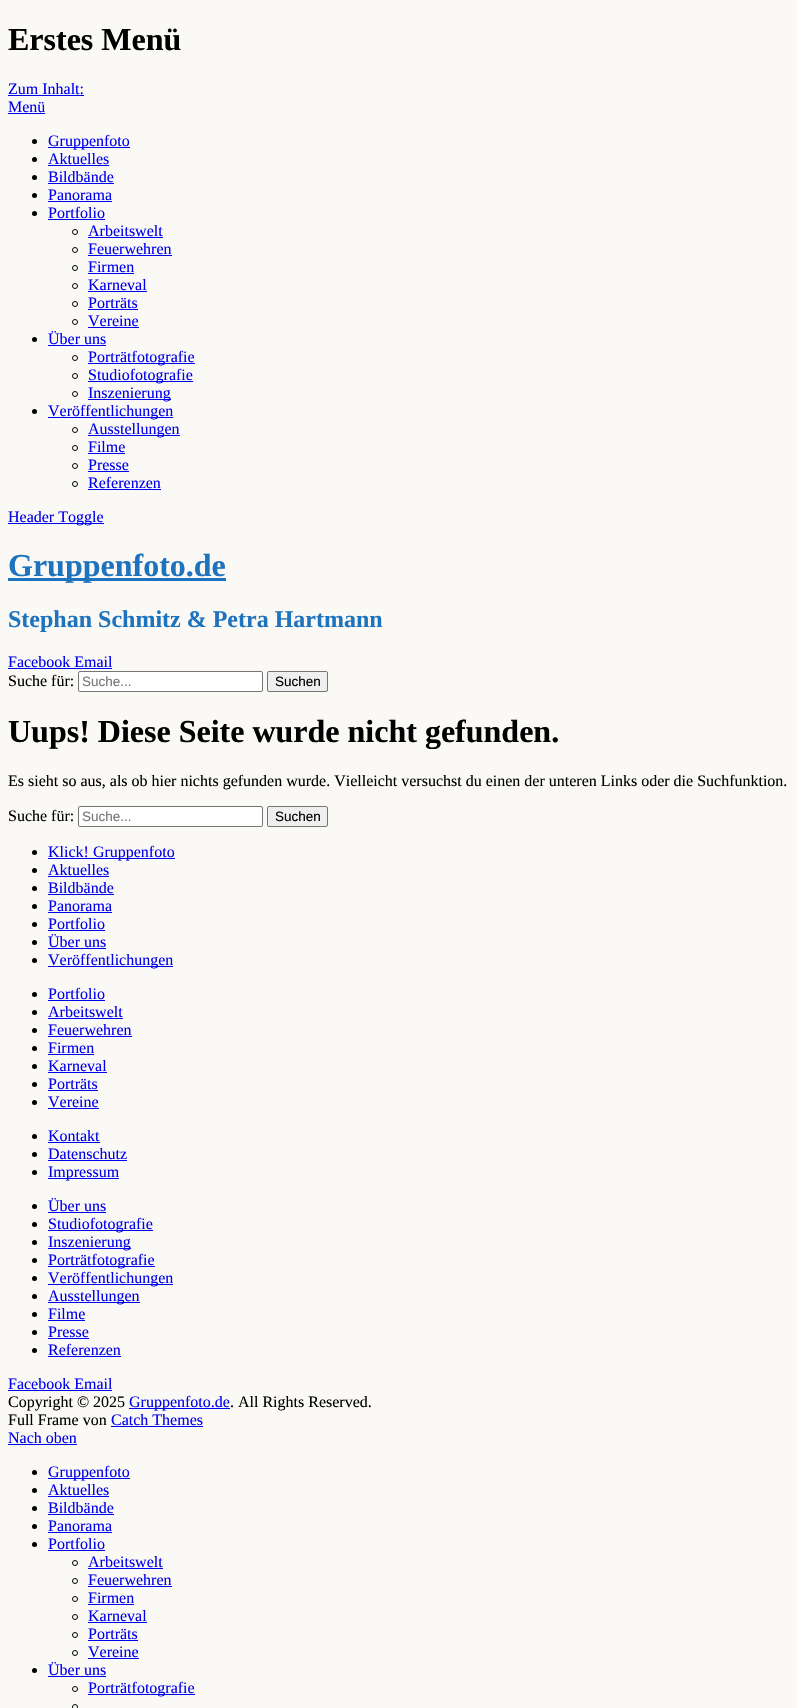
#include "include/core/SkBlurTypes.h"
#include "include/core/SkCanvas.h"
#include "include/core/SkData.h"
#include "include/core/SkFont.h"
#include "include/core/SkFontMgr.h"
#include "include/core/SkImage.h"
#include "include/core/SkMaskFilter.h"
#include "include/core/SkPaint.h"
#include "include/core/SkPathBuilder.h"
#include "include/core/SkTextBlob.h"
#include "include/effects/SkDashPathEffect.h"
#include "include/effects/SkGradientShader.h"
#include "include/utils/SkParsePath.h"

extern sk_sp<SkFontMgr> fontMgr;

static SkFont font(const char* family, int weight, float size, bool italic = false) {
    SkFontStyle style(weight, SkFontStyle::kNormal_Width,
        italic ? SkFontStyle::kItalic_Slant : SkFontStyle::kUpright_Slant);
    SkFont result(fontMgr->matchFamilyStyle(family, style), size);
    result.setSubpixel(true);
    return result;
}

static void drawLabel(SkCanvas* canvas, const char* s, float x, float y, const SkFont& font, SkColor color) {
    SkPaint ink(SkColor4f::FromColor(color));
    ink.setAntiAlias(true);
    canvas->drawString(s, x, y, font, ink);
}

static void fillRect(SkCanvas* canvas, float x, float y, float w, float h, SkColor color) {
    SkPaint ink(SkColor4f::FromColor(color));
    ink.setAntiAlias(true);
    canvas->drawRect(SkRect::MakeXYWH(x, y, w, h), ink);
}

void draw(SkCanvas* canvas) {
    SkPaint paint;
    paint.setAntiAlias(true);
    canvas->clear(0xFFFAF9F5);
    SkFont font1 = font("Liberation Serif", 700, 32);
    drawLabel(canvas, "Erstes Menü", 8, 50, font1, 0xFF000000);
    SkFont font2 = font("Liberation Serif", 400, 16);
    drawLabel(canvas, "Zum Inhalt:", 8, 94, font2, 0xFF0000EE);
    fillRect(canvas, 8, 95, 76, 1, 0xFF0000EE);
    drawLabel(canvas, "Menü", 8, 112, font2, 0xFF0000EE);
    fillRect(canvas, 8, 113, 37, 1, 0xFF0000EE);
    paint.setColor(0xFF000000);
    canvas->drawCircle(34.5f, 141.5f, 2.5f, paint);
    fillRect(canvas, 48, 147, 82, 1, 0xFF0000EE);
    drawLabel(canvas, "Gruppenfoto", 48, 146, font2, 0xFF0000EE);
    canvas->drawCircle(34.5f, 159.5f, 2.5f, paint);
    drawLabel(canvas, "Aktuelles", 48, 164, font2, 0xFF0000EE);
    fillRect(canvas, 48, 165, 61, 1, 0xFF0000EE);
    canvas->drawCircle(34.5f, 177.5f, 2.5f, paint);
    drawLabel(canvas, "Bildbände", 48, 182, font2, 0xFF0000EE);
    fillRect(canvas, 48, 183, 66, 1, 0xFF0000EE);
    canvas->drawCircle(34.5f, 195.5f, 2.5f, paint);
    drawLabel(canvas, "Panorama", 48, 200, font2, 0xFF0000EE);
    fillRect(canvas, 48, 201, 64, 1, 0xFF0000EE);
    canvas->drawCircle(34.5f, 213.5f, 2.5f, paint);
    drawLabel(canvas, "Portfolio", 48, 218, font2, 0xFF0000EE);
    fillRect(canvas, 48, 219, 57, 1, 0xFF0000EE);
    paint.setStroke(true);
    paint.setStrokeWidth(1);
    canvas->drawCircle(75, 232, 2.5f, paint);
    drawLabel(canvas, "Arbeitswelt", 88, 236, font2, 0xFF0000EE);
    fillRect(canvas, 88, 237, 75, 1, 0xFF0000EE);
    canvas->drawCircle(75, 250, 2.5f, paint);
    drawLabel(canvas, "Feuerwehren", 88, 254, font2, 0xFF0000EE);
    fillRect(canvas, 88, 255, 84, 1, 0xFF0000EE);
    canvas->drawCircle(75, 268, 2.5f, paint);
    drawLabel(canvas, "Firmen", 88, 272, font2, 0xFF0000EE);
    fillRect(canvas, 88, 273, 46, 1, 0xFF0000EE);
    canvas->drawCircle(75, 286, 2.5f, paint);
    drawLabel(canvas, "Karneval", 88, 290, font2, 0xFF0000EE);
    fillRect(canvas, 88, 291, 59, 1, 0xFF0000EE);
    canvas->drawCircle(75, 304, 2.5f, paint);
    drawLabel(canvas, "Porträts", 88, 308, font2, 0xFF0000EE);
    fillRect(canvas, 88, 309, 50, 1, 0xFF0000EE);
    canvas->drawCircle(75, 322, 2.5f, paint);
    drawLabel(canvas, "Vereine", 88, 326, font2, 0xFF0000EE);
    fillRect(canvas, 88, 327, 51, 1, 0xFF0000EE);
    paint.setStroke(false);
    canvas->drawCircle(34.5f, 339.5f, 2.5f, paint);
    drawLabel(canvas, "Über uns", 48, 344, font2, 0xFF0000EE);
    fillRect(canvas, 48, 345, 58, 1, 0xFF0000EE);
    paint.setStroke(true);
    canvas->drawCircle(75, 358, 2.5f, paint);
    fillRect(canvas, 88, 363, 107, 1, 0xFF0000EE);
    drawLabel(canvas, "Porträtfotografie", 88, 362, font2, 0xFF0000EE);
    canvas->drawCircle(75, 376, 2.5f, paint);
    fillRect(canvas, 88, 381, 105, 1, 0xFF0000EE);
    drawLabel(canvas, "Studiofotografie", 88, 380, font2, 0xFF0000EE);
    canvas->drawCircle(75, 394, 2.5f, paint);
    fillRect(canvas, 88, 399, 83, 1, 0xFF0000EE);
    drawLabel(canvas, "Inszenierung", 88, 398, font2, 0xFF0000EE);
    paint.setStroke(false);
    canvas->drawCircle(34.5f, 411.5f, 2.5f, paint);
    fillRect(canvas, 48, 417, 125, 1, 0xFF0000EE);
    drawLabel(canvas, "Veröffentlichungen", 48, 416, font2, 0xFF0000EE);
    paint.setStroke(true);
    canvas->drawCircle(75, 430, 2.5f, paint);
    fillRect(canvas, 88, 435, 92, 1, 0xFF0000EE);
    drawLabel(canvas, "Ausstellungen", 88, 434, font2, 0xFF0000EE);
    canvas->drawCircle(75, 448, 2.5f, paint);
    drawLabel(canvas, "Filme", 88, 452, font2, 0xFF0000EE);
    fillRect(canvas, 88, 453, 37, 1, 0xFF0000EE);
    canvas->drawCircle(75, 466, 2.5f, paint);
    drawLabel(canvas, "Presse", 88, 470, font2, 0xFF0000EE);
    fillRect(canvas, 88, 471, 41, 1, 0xFF0000EE);
    canvas->drawCircle(75, 484, 2.5f, paint);
    drawLabel(canvas, "Referenzen", 88, 488, font2, 0xFF0000EE);
    fillRect(canvas, 88, 489, 73, 1, 0xFF0000EE);
    fillRect(canvas, 8, 523, 96, 1, 0xFF0000EE);
    drawLabel(canvas, "Header Toggle", 8, 522, font2, 0xFF0000EE);
    fillRect(canvas, 8, 578, 218, 3, 0xFF1E73BE);
    drawLabel(canvas, "Gruppenfoto.de", 8, 576, font1, 0xFF1E73BE);
    SkFont font3 = font("Liberation Serif", 700, 24);
    drawLabel(canvas, "Stephan Schmitz & Petra Hartmann", 8, 627, font3, 0xFF1E73BE);
    drawLabel(canvas, "Facebook Email", 8, 667, font2, 0xFF0000EE);
    fillRect(canvas, 8, 668, 104, 1, 0xFF0000EE);
    drawLabel(canvas, "Suche für:", 8, 686, font2, 0xFF000000);
    paint.setStroke(false);
    paint.setColor(0xFFFFFFFF);
    canvas->drawRoundRect(SkRect::MakeXYWH(78.5f, 671.5f, 184, 20), 1.5f, 1.5f, paint);
    paint.setStroke(true);
    paint.setColor(0xFF767676);
    canvas->drawRoundRect(SkRect::MakeXYWH(78.5f, 671.5f, 184, 20), 1.5f, 1.5f, paint);
    SkFont font4 = font("Liberation Sans", 400, 13.5f);
    drawLabel(canvas, "Suche...", 82, 686, font4, 0xFF757575);
    paint.setStroke(false);
    paint.setColor(0xFFEFEFEF);
    canvas->drawRoundRect(SkRect::MakeXYWH(267.5f, 671.5f, 60, 20), 1.5f, 1.5f, paint);
    paint.setStroke(true);
    paint.setColor(0xFF767676);
    canvas->drawRoundRect(SkRect::MakeXYWH(267.5f, 671.5f, 60, 20), 1.5f, 1.5f, paint);
    drawLabel(canvas, "Suchen", 275, 686, font4, 0xFF000000);
    drawLabel(canvas, "Uups! Diese Seite wurde nicht gefunden.", 8, 742, font1, 0xFF000000);
    drawLabel(canvas, "Es sieht so aus, als ob hier nichts gefunden wurde. Vielleicht versuchst du einen der unteren Links oder die Suchfunktion.", 8, 786, font2, 0xFF000000);
    drawLabel(canvas, "Suche für:", 8, 821, font2, 0xFF000000);
    paint.setStroke(false);
    paint.setColor(0xFFFFFFFF);
    canvas->drawRoundRect(SkRect::MakeXYWH(78.5f, 806.5f, 184, 20), 1.5f, 1.5f, paint);
    paint.setStroke(true);
    paint.setColor(0xFF767676);
    canvas->drawRoundRect(SkRect::MakeXYWH(78.5f, 806.5f, 184, 20), 1.5f, 1.5f, paint);
    drawLabel(canvas, "Suche...", 82, 821, font4, 0xFF757575);
    paint.setStroke(false);
    paint.setColor(0xFFEFEFEF);
    canvas->drawRoundRect(SkRect::MakeXYWH(267.5f, 806.5f, 60, 20), 1.5f, 1.5f, paint);
    paint.setStroke(true);
    paint.setColor(0xFF767676);
    canvas->drawRoundRect(SkRect::MakeXYWH(267.5f, 806.5f, 60, 20), 1.5f, 1.5f, paint);
    drawLabel(canvas, "Suchen", 275, 821, font4, 0xFF000000);
    paint.setStroke(false);
    paint.setColor(0xFF000000);
    canvas->drawCircle(34.5f, 852.5f, 2.5f, paint);
    fillRect(canvas, 48, 858, 127, 1, 0xFF0000EE);
    drawLabel(canvas, "Klick! Gruppenfoto", 48, 857, font2, 0xFF0000EE);
    canvas->drawCircle(34.5f, 870.5f, 2.5f, paint);
    drawLabel(canvas, "Aktuelles", 48, 875, font2, 0xFF0000EE);
    fillRect(canvas, 48, 876, 61, 1, 0xFF0000EE);
    canvas->drawCircle(34.5f, 888.5f, 2.5f, paint);
    drawLabel(canvas, "Bildbände", 48, 893, font2, 0xFF0000EE);
    fillRect(canvas, 48, 894, 66, 1, 0xFF0000EE);
    canvas->drawCircle(34.5f, 906.5f, 2.5f, paint);
    drawLabel(canvas, "Panorama", 48, 911, font2, 0xFF0000EE);
    fillRect(canvas, 48, 912, 64, 1, 0xFF0000EE);
    canvas->drawCircle(34.5f, 924.5f, 2.5f, paint);
    drawLabel(canvas, "Portfolio", 48, 929, font2, 0xFF0000EE);
    fillRect(canvas, 48, 930, 57, 1, 0xFF0000EE);
    canvas->drawCircle(34.5f, 942.5f, 2.5f, paint);
    drawLabel(canvas, "Über uns", 48, 947, font2, 0xFF0000EE);
    fillRect(canvas, 48, 948, 58, 1, 0xFF0000EE);
    canvas->drawCircle(34.5f, 960.5f, 2.5f, paint);
    fillRect(canvas, 48, 966, 125, 1, 0xFF0000EE);
    drawLabel(canvas, "Veröffentlichungen", 48, 965, font2, 0xFF0000EE);
    canvas->drawCircle(34.5f, 994.5f, 2.5f, paint);
    drawLabel(canvas, "Portfolio", 48, 999, font2, 0xFF0000EE);
    fillRect(canvas, 48, 1000, 57, 1, 0xFF0000EE);
    canvas->drawCircle(34.5f, 1012.5f, 2.5f, paint);
    drawLabel(canvas, "Arbeitswelt", 48, 1017, font2, 0xFF0000EE);
    fillRect(canvas, 48, 1018, 75, 1, 0xFF0000EE);
    canvas->drawCircle(34.5f, 1030.5f, 2.5f, paint);
    drawLabel(canvas, "Feuerwehren", 48, 1035, font2, 0xFF0000EE);
    fillRect(canvas, 48, 1036, 84, 1, 0xFF0000EE);
    canvas->drawCircle(34.5f, 1048.5f, 2.5f, paint);
    drawLabel(canvas, "Firmen", 48, 1053, font2, 0xFF0000EE);
    fillRect(canvas, 48, 1054, 46, 1, 0xFF0000EE);
    canvas->drawCircle(34.5f, 1066.5f, 2.5f, paint);
    drawLabel(canvas, "Karneval", 48, 1071, font2, 0xFF0000EE);
    fillRect(canvas, 48, 1072, 59, 1, 0xFF0000EE);
    canvas->drawCircle(34.5f, 1084.5f, 2.5f, paint);
    drawLabel(canvas, "Porträts", 48, 1089, font2, 0xFF0000EE);
    fillRect(canvas, 48, 1090, 50, 1, 0xFF0000EE);
    canvas->drawCircle(34.5f, 1102.5f, 2.5f, paint);
    drawLabel(canvas, "Vereine", 48, 1107, font2, 0xFF0000EE);
    fillRect(canvas, 48, 1108, 51, 1, 0xFF0000EE);
    canvas->drawCircle(34.5f, 1136.5f, 2.5f, paint);
    drawLabel(canvas, "Kontakt", 48, 1141, font2, 0xFF0000EE);
    fillRect(canvas, 48, 1142, 52, 1, 0xFF0000EE);
    canvas->drawCircle(34.5f, 1154.5f, 2.5f, paint);
    drawLabel(canvas, "Datenschutz", 48, 1159, font2, 0xFF0000EE);
    fillRect(canvas, 48, 1160, 79, 1, 0xFF0000EE);
    canvas->drawCircle(34.5f, 1172.5f, 2.5f, paint);
    fillRect(canvas, 48, 1178, 71, 1, 0xFF0000EE);
    drawLabel(canvas, "Impressum", 48, 1177, font2, 0xFF0000EE);
    canvas->drawCircle(34.5f, 1206.5f, 2.5f, paint);
    drawLabel(canvas, "Über uns", 48, 1211, font2, 0xFF0000EE);
    fillRect(canvas, 48, 1212, 58, 1, 0xFF0000EE);
    canvas->drawCircle(34.5f, 1224.5f, 2.5f, paint);
    fillRect(canvas, 48, 1230, 105, 1, 0xFF0000EE);
    drawLabel(canvas, "Studiofotografie", 48, 1229, font2, 0xFF0000EE);
    canvas->drawCircle(34.5f, 1242.5f, 2.5f, paint);
    fillRect(canvas, 48, 1248, 83, 1, 0xFF0000EE);
    drawLabel(canvas, "Inszenierung", 48, 1247, font2, 0xFF0000EE);
    canvas->drawCircle(34.5f, 1260.5f, 2.5f, paint);
    fillRect(canvas, 48, 1266, 107, 1, 0xFF0000EE);
    drawLabel(canvas, "Porträtfotografie", 48, 1265, font2, 0xFF0000EE);
    canvas->drawCircle(34.5f, 1278.5f, 2.5f, paint);
    fillRect(canvas, 48, 1284, 125, 1, 0xFF0000EE);
    drawLabel(canvas, "Veröffentlichungen", 48, 1283, font2, 0xFF0000EE);
    canvas->drawCircle(34.5f, 1296.5f, 2.5f, paint);
    fillRect(canvas, 48, 1302, 92, 1, 0xFF0000EE);
    drawLabel(canvas, "Ausstellungen", 48, 1301, font2, 0xFF0000EE);
    canvas->drawCircle(34.5f, 1314.5f, 2.5f, paint);
    drawLabel(canvas, "Filme", 48, 1319, font2, 0xFF0000EE);
    fillRect(canvas, 48, 1320, 37, 1, 0xFF0000EE);
    canvas->drawCircle(34.5f, 1332.5f, 2.5f, paint);
    drawLabel(canvas, "Presse", 48, 1337, font2, 0xFF0000EE);
    fillRect(canvas, 48, 1338, 41, 1, 0xFF0000EE);
    canvas->drawCircle(34.5f, 1350.5f, 2.5f, paint);
    drawLabel(canvas, "Referenzen", 48, 1355, font2, 0xFF0000EE);
    fillRect(canvas, 48, 1356, 73, 1, 0xFF0000EE);
    drawLabel(canvas, "Facebook Email", 8, 1389, font2, 0xFF0000EE);
    fillRect(canvas, 8, 1390, 104, 1, 0xFF0000EE);
    drawLabel(canvas, "Copyright © 2025", 8, 1407, font2, 0xFF000000);
    fillRect(canvas, 129, 1408, 101, 1, 0xFF0000EE);
    drawLabel(canvas, "Gruppenfoto.de", 129, 1407, font2, 0xFF0000EE);
    drawLabel(canvas, ". All Rights Reserved.", 230, 1407, font2, 0xFF000000);
    drawLabel(canvas, "Full Frame von", 8, 1425, font2, 0xFF000000);
    drawLabel(canvas, "Catch Themes", 111, 1425, font2, 0xFF0000EE);
    fillRect(canvas, 111, 1426, 92, 1, 0xFF0000EE);
    drawLabel(canvas, "Nach oben", 8, 1443, font2, 0xFF0000EE);
    fillRect(canvas, 8, 1444, 69, 1, 0xFF0000EE);
    canvas->drawCircle(34.5f, 1472.5f, 2.5f, paint);
    fillRect(canvas, 48, 1478, 82, 1, 0xFF0000EE);
    drawLabel(canvas, "Gruppenfoto", 48, 1477, font2, 0xFF0000EE);
    canvas->drawCircle(34.5f, 1490.5f, 2.5f, paint);
    drawLabel(canvas, "Aktuelles", 48, 1495, font2, 0xFF0000EE);
    fillRect(canvas, 48, 1496, 61, 1, 0xFF0000EE);
    canvas->drawCircle(34.5f, 1508.5f, 2.5f, paint);
    drawLabel(canvas, "Bildbände", 48, 1513, font2, 0xFF0000EE);
    fillRect(canvas, 48, 1514, 66, 1, 0xFF0000EE);
    canvas->drawCircle(34.5f, 1526.5f, 2.5f, paint);
    drawLabel(canvas, "Panorama", 48, 1531, font2, 0xFF0000EE);
    fillRect(canvas, 48, 1532, 64, 1, 0xFF0000EE);
    canvas->drawCircle(34.5f, 1544.5f, 2.5f, paint);
    drawLabel(canvas, "Portfolio", 48, 1549, font2, 0xFF0000EE);
    fillRect(canvas, 48, 1550, 57, 1, 0xFF0000EE);
    paint.setStroke(true);
    canvas->drawCircle(75, 1563, 2.5f, paint);
    drawLabel(canvas, "Arbeitswelt", 88, 1567, font2, 0xFF0000EE);
    fillRect(canvas, 88, 1568, 75, 1, 0xFF0000EE);
    canvas->drawCircle(75, 1581, 2.5f, paint);
    drawLabel(canvas, "Feuerwehren", 88, 1585, font2, 0xFF0000EE);
    fillRect(canvas, 88, 1586, 84, 1, 0xFF0000EE);
    canvas->drawCircle(75, 1599, 2.5f, paint);
    drawLabel(canvas, "Firmen", 88, 1603, font2, 0xFF0000EE);
    fillRect(canvas, 88, 1604, 46, 1, 0xFF0000EE);
    canvas->drawCircle(75, 1617, 2.5f, paint);
    drawLabel(canvas, "Karneval", 88, 1621, font2, 0xFF0000EE);
    fillRect(canvas, 88, 1622, 59, 1, 0xFF0000EE);
    canvas->drawCircle(75, 1635, 2.5f, paint);
    drawLabel(canvas, "Porträts", 88, 1639, font2, 0xFF0000EE);
    fillRect(canvas, 88, 1640, 50, 1, 0xFF0000EE);
    canvas->drawCircle(75, 1653, 2.5f, paint);
    drawLabel(canvas, "Vereine", 88, 1657, font2, 0xFF0000EE);
    fillRect(canvas, 88, 1658, 51, 1, 0xFF0000EE);
    paint.setStroke(false);
    canvas->drawCircle(34.5f, 1670.5f, 2.5f, paint);
    drawLabel(canvas, "Über uns", 48, 1675, font2, 0xFF0000EE);
    fillRect(canvas, 48, 1676, 58, 1, 0xFF0000EE);
    paint.setStroke(true);
    canvas->drawCircle(75, 1689, 2.5f, paint);
    fillRect(canvas, 88, 1694, 107, 1, 0xFF0000EE);
    drawLabel(canvas, "Porträtfotografie", 88, 1693, font2, 0xFF0000EE);
    canvas->drawCircle(75, 1707, 2.5f, paint);
}
